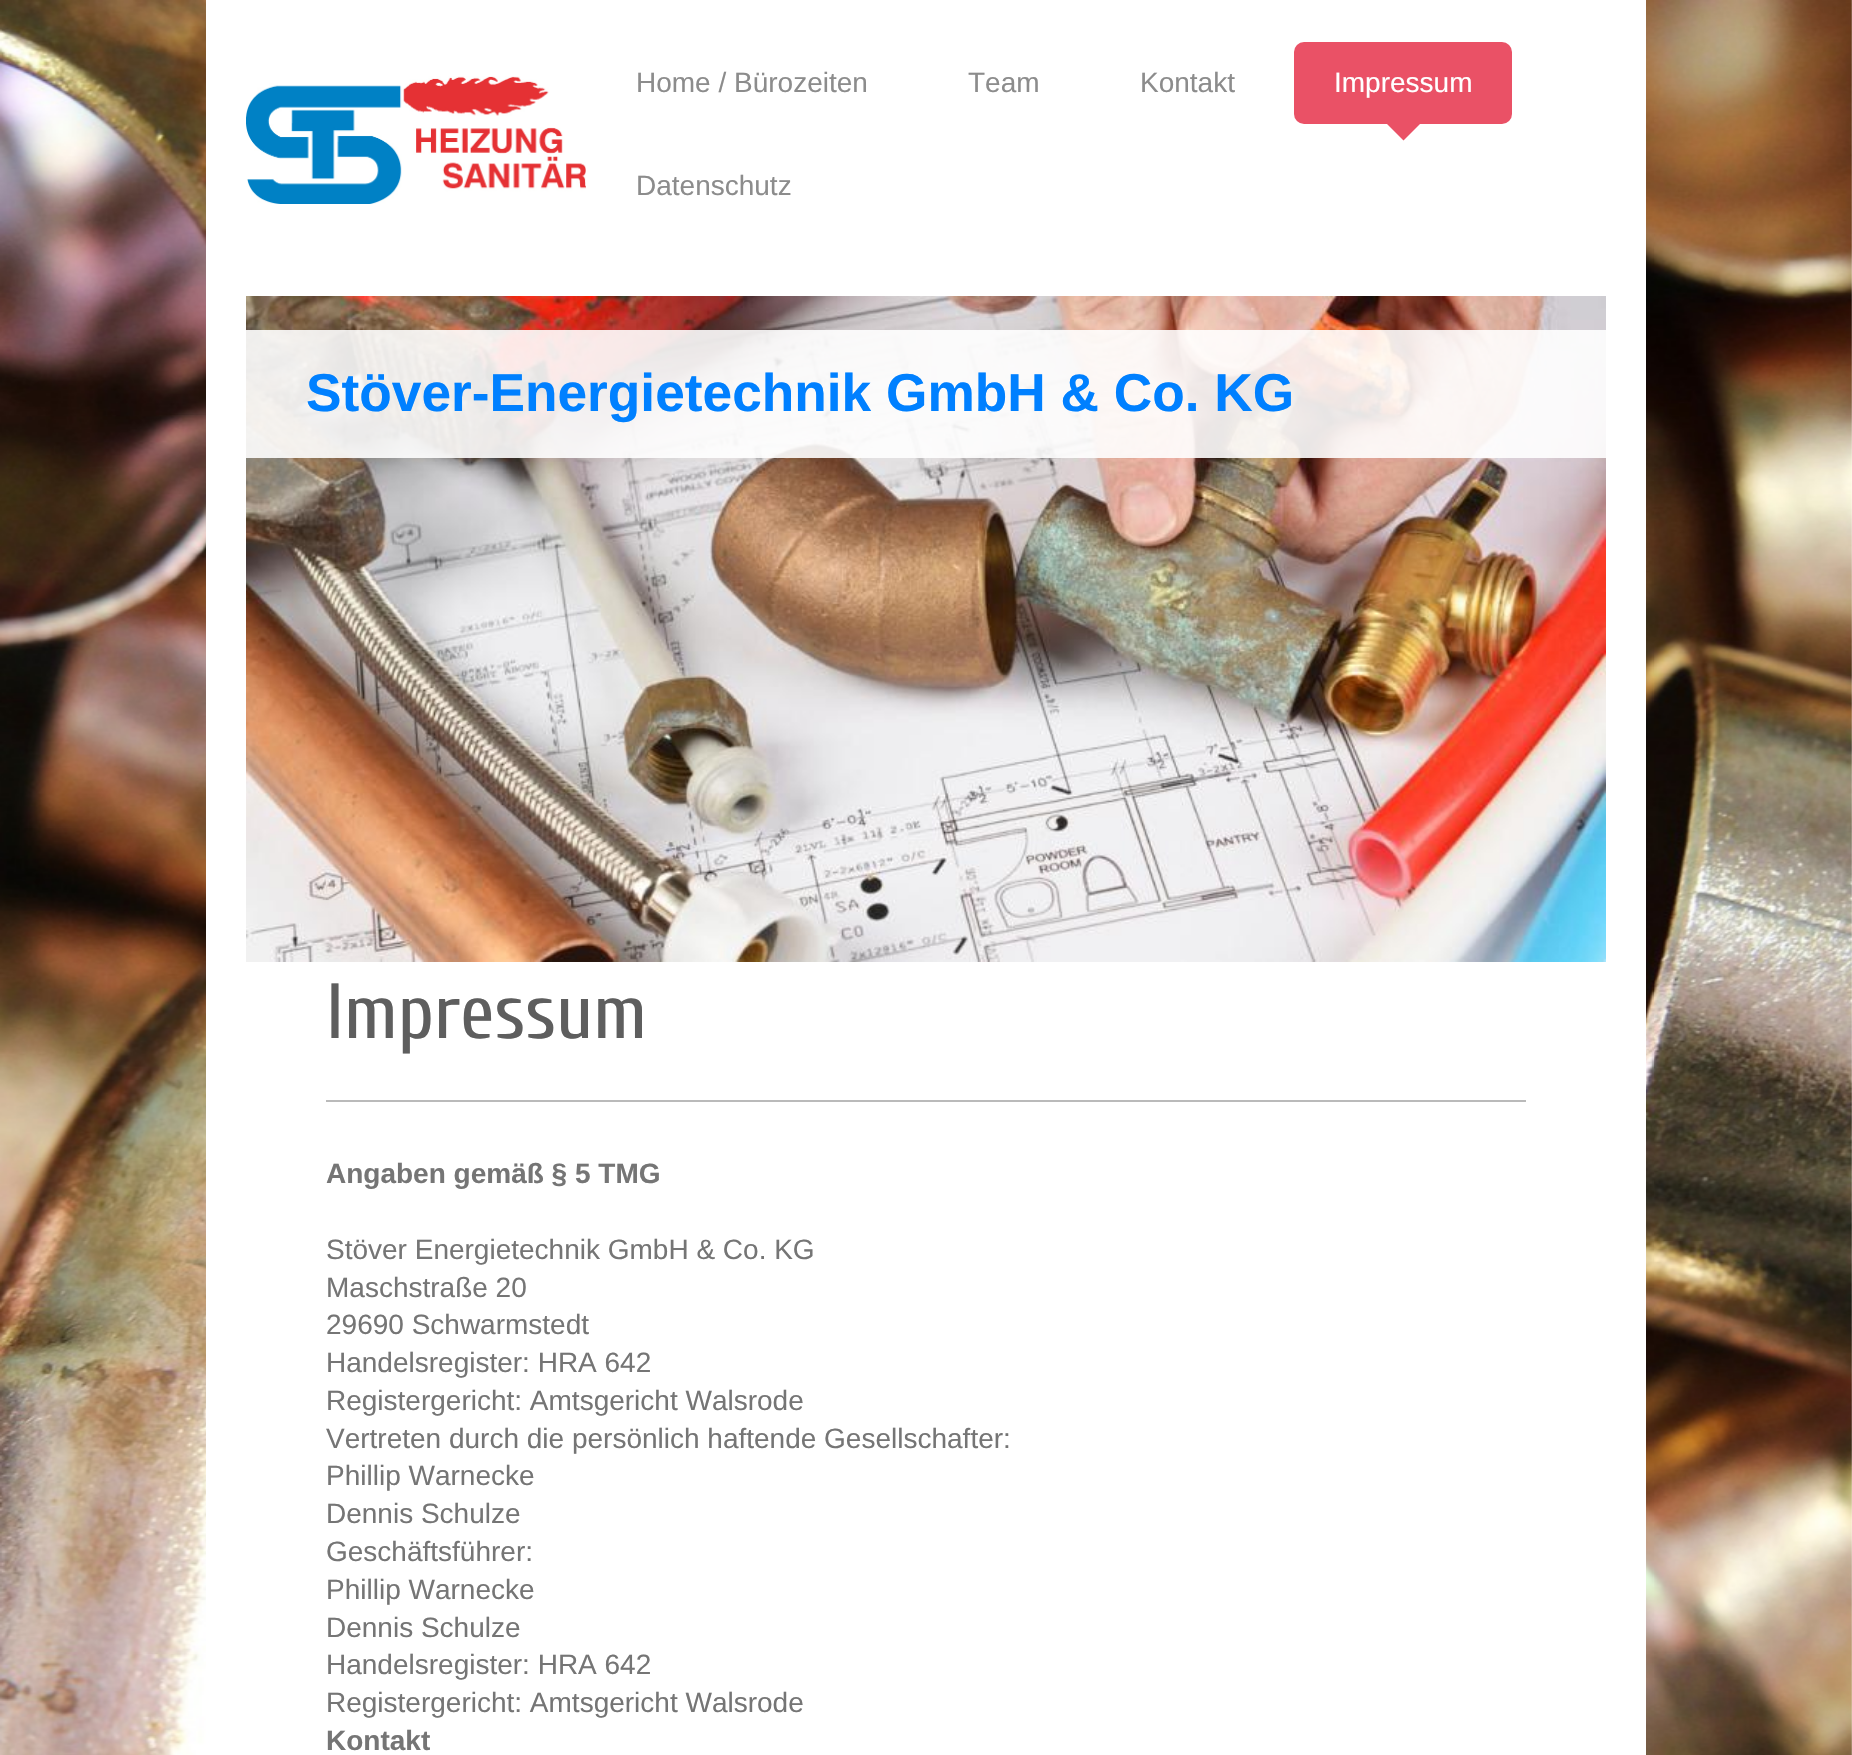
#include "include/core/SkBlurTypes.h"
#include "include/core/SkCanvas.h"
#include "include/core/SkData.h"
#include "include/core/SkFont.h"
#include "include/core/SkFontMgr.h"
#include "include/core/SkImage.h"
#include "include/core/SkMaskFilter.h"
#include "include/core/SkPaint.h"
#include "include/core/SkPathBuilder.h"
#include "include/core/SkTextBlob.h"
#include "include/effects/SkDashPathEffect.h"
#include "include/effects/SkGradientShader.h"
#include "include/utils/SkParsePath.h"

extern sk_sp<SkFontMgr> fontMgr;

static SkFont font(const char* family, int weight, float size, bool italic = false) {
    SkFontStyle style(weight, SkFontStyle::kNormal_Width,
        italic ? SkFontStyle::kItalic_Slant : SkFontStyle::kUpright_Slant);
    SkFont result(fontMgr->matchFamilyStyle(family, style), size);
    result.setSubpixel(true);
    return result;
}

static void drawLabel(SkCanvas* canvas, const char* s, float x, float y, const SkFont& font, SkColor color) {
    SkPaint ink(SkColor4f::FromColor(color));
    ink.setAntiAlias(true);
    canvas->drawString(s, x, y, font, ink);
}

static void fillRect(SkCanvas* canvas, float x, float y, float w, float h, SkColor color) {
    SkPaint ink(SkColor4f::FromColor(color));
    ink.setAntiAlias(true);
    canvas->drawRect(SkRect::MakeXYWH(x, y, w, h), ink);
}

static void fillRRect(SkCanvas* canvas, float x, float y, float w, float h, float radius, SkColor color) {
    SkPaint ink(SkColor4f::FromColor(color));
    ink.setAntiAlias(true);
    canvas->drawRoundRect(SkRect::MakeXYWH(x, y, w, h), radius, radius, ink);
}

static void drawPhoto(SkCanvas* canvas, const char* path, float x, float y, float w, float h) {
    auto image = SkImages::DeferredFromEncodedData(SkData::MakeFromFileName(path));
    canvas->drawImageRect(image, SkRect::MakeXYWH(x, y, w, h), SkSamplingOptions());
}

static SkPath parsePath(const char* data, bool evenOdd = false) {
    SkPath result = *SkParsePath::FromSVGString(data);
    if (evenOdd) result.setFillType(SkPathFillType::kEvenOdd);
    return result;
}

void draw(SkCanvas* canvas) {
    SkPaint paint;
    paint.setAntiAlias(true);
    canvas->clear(0xFFFFFFFF);
    drawPhoto(canvas, "assets/img1.png", 0, 0, 1852, 1755);
    fillRect(canvas, 206, 0, 1440, 1755, 0xFFFFFFFF);
    drawPhoto(canvas, "assets/img2.png", 246, 76, 340, 128);
    SkFont font1 = font("Liberation Sans", 400, 28);
    drawLabel(canvas, "Home / Bürozeiten", 636, 92, font1, 0xFF8C8C8C);
    drawLabel(canvas, "Team", 968, 92, font1, 0xFF8C8C8C);
    drawLabel(canvas, "Kontakt", 1140, 92, font1, 0xFF8C8C8C);
    fillRRect(canvas, 1294, 42, 218, 82, 10, 0xFFEA5166);
    drawLabel(canvas, "Impressum", 1334, 92, font1, 0xFFFFFFFF);
    paint.setColor(0xFFEA5166);
    canvas->drawPath(parsePath("M1383.5 120.5H1423.5L1403.5 140.5Z"), paint);
    drawLabel(canvas, "Datenschutz", 636, 195, font1, 0xFF8C8C8C);
    drawPhoto(canvas, "assets/img3.png", 246, 296, 1360, 666);
    fillRect(canvas, 246, 330, 1360, 128, 0xE3FFFFFF);
    SkFont font2 = font("Liberation Sans", 700, 53.25f);
    drawLabel(canvas, "Stöver-Energietechnik GmbH & Co. KG", 306, 411, font2, 0xFF0080FF);
    SkFont font3 = font("Cuprum", 400, 78);
    drawLabel(canvas, "Impressum", 326, 1038, font3, 0xFF5E5E5E);
    fillRect(canvas, 326, 1100, 1200, 2, 0xFFBABABA);
    SkFont font4 = font("Liberation Sans", 700, 28);
    drawLabel(canvas, "Angaben gemäß § 5 TMG", 326, 1183, font4, 0xFF757575);
    drawLabel(canvas, "Stöver Energietechnik GmbH & Co. KG", 326, 1259, font1, 0xFF757575);
    drawLabel(canvas, "Maschstraße 20", 326, 1297, font1, 0xFF757575);
    drawLabel(canvas, "29690 Schwarmstedt", 326, 1334, font1, 0xFF757575);
    drawLabel(canvas, "Handelsregister: HRA 642", 326, 1372, font1, 0xFF757575);
    drawLabel(canvas, "Registergericht: Amtsgericht Walsrode", 326, 1410, font1, 0xFF757575);
    drawLabel(canvas, "Vertreten durch die persönlich haftende Gesellschafter:", 326, 1448, font1, 0xFF757575);
    drawLabel(canvas, "Phillip Warnecke", 326, 1485, font1, 0xFF757575);
    drawLabel(canvas, "Dennis Schulze", 326, 1523, font1, 0xFF757575);
    drawLabel(canvas, "Geschäftsführer:", 326, 1561, font1, 0xFF757575);
    drawLabel(canvas, "Phillip Warnecke", 326, 1599, font1, 0xFF757575);
    drawLabel(canvas, "Dennis Schulze", 326, 1637, font1, 0xFF757575);
    drawLabel(canvas, "Handelsregister: HRA 642", 326, 1674, font1, 0xFF757575);
    drawLabel(canvas, "Registergericht: Amtsgericht Walsrode", 326, 1712, font1, 0xFF757575);
    drawLabel(canvas, "Kontakt", 326, 1750, font4, 0xFF757575);
}
